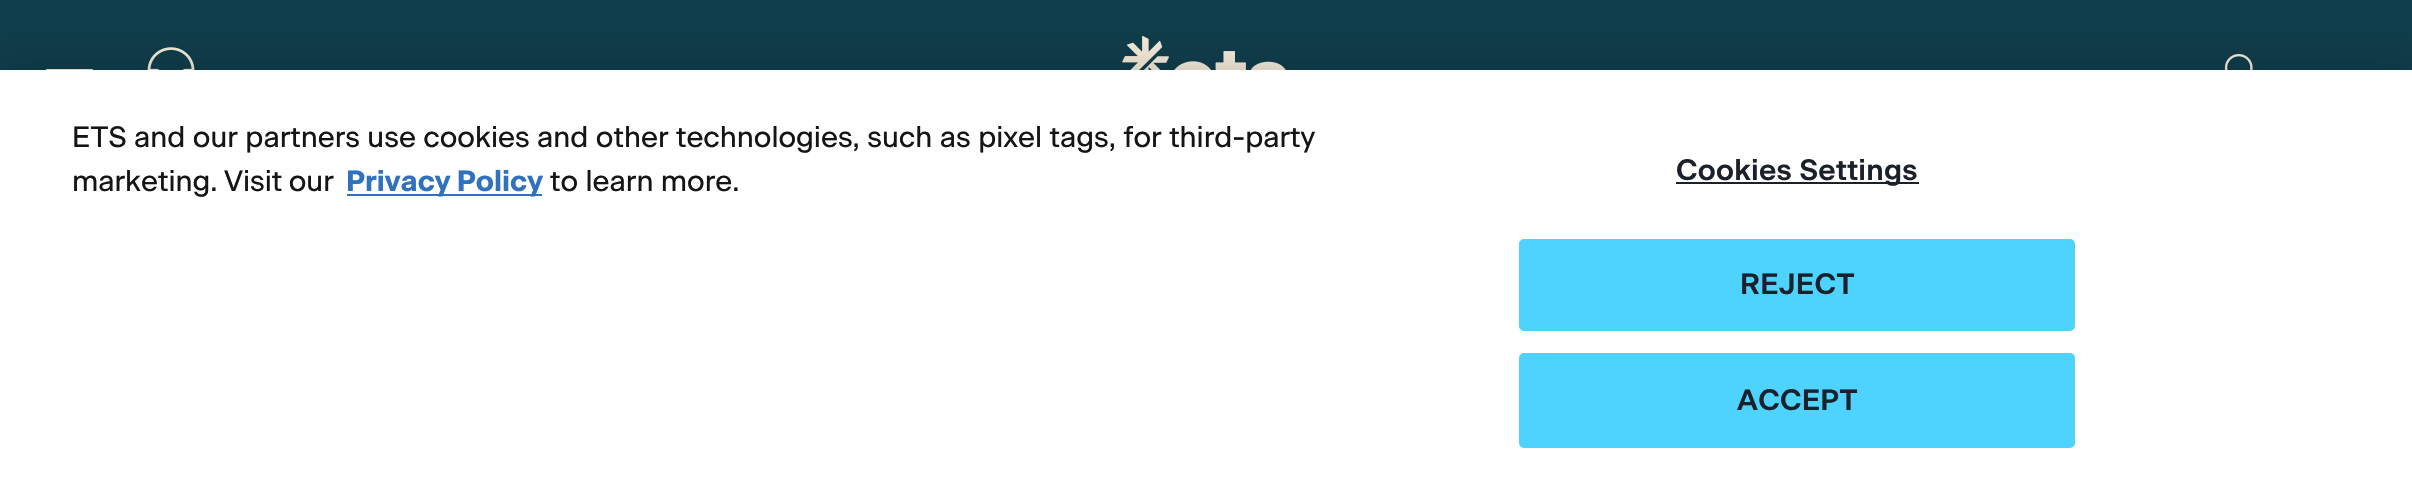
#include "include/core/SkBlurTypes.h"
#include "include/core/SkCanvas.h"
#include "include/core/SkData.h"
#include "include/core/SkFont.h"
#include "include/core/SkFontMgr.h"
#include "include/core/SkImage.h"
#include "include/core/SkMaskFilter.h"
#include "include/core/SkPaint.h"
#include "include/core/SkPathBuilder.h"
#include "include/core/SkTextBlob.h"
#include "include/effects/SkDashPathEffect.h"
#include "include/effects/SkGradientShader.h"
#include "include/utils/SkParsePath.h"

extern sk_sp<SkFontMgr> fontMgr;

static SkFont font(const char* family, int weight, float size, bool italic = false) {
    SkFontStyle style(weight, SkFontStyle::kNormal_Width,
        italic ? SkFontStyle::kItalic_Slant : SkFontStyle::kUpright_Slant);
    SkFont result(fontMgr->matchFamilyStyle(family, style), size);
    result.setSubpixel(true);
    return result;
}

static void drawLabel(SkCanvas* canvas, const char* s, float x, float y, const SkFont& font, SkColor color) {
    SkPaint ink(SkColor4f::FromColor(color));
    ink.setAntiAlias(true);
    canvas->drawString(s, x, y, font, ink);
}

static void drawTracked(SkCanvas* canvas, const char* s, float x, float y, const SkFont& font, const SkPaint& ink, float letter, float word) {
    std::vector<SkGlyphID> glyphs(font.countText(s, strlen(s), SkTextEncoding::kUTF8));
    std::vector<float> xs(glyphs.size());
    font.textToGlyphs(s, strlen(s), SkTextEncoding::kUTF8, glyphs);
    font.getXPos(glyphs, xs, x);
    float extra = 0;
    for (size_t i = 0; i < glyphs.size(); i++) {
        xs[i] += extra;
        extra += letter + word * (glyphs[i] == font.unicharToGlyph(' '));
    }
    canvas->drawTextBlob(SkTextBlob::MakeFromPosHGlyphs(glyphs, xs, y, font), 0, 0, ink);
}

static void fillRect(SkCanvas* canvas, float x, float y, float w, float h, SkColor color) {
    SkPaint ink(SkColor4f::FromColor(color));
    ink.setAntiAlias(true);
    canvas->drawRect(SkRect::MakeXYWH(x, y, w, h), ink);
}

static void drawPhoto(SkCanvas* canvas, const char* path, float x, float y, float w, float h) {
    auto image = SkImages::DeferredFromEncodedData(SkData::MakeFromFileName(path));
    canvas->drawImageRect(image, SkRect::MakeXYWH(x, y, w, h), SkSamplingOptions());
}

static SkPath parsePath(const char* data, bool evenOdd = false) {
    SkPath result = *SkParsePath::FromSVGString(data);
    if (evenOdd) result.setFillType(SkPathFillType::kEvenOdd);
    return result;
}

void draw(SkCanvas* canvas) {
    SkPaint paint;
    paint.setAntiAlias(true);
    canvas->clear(0xFF103D4B);
    drawPhoto(canvas, "assets/img1.png", 147, 47, 48, 23);
    drawPhoto(canvas, "assets/img2.png", 1122, 36, 164, 34);
    drawPhoto(canvas, "assets/img3.png", 2224, 54, 29, 16);
    paint.setStroke(true);
    paint.setStrokeWidth(2.2f);
    paint.setStrokeCap(SkPaint::kRound_Cap);
    paint.setStrokeJoin(SkPaint::kRound_Join);
    paint.setColor(0xFFF2E9D8);
    canvas->drawPath(parsePath("M47 70H92M47 83H92M47 97H92"), paint);
    paint.setStroke(false);
    paint.setColor(0x33000000);
    paint.setMaskFilter(SkMaskFilter::MakeBlur(kNormal_SkBlurStyle, 20));
    canvas->drawRect(SkRect::MakeXYWH(0, 70, 2412, 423), paint);
    paint.setMaskFilter(nullptr);
    fillRect(canvas, 0, 70, 2412, 422, 0xFFFFFFFF);
    SkFont font1 = font("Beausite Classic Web", 400, 29.25f);
    drawLabel(canvas, "ETS and our partners use cookies and other technologies, such as pixel tags, for third-party", 72, 147, font1, 0xFF151515);
    paint.setColor(0xFF151515);
    drawTracked(canvas, "marketing. Visit our", 72, 191, font1, paint, 0, -1);
    fillRect(canvas, 347, 194, 195, 2, 0xFF3072BE);
    SkFont font2 = font("Beausite Classic Web", 700, 29.25f);
    paint.setColor(0xFF3072BE);
    drawTracked(canvas, "Privacy Policy", 346, 191, font2, paint, 0, -1);
    drawLabel(canvas, "to learn more.", 550, 191, font1, 0xFF151515);
    fillRect(canvas, 1676, 182, 243, 2, 0xFF1A212B);
    SkFont font3 = font("Beausite Classic Web", 600, 29.25f);
    paint.setColor(0xFF1A212B);
    drawTracked(canvas, "Cookies Settings", 1676, 180, font3, paint, 0.25f, 0);
    paint.setColor(0xFF4DD3FE);
    canvas->drawRoundRect(SkRect::MakeXYWH(1520, 240, 554, 90), 4, 4, paint);
    paint.setStroke(true);
    paint.setStrokeWidth(2);
    paint.setStrokeCap(SkPaint::kButt_Cap);
    paint.setStrokeJoin(SkPaint::kMiter_Join);
    canvas->drawRoundRect(SkRect::MakeXYWH(1520, 240, 554, 90), 4, 4, paint);
    paint.setStroke(false);
    paint.setColor(0xFF1A212B);
    drawTracked(canvas, "REJECT", 1740, 294, font3, paint, 0.25f, 0);
    paint.setColor(0xFF4DD3FE);
    canvas->drawRoundRect(SkRect::MakeXYWH(1520, 354, 554, 93), 4, 4, paint);
    paint.setStroke(true);
    canvas->drawRoundRect(SkRect::MakeXYWH(1520, 354, 554, 93), 4, 4, paint);
    paint.setStroke(false);
    paint.setColor(0xFF1A212B);
    drawTracked(canvas, "ACCEPT", 1737, 410, font3, paint, 0.25f, 0);
}
